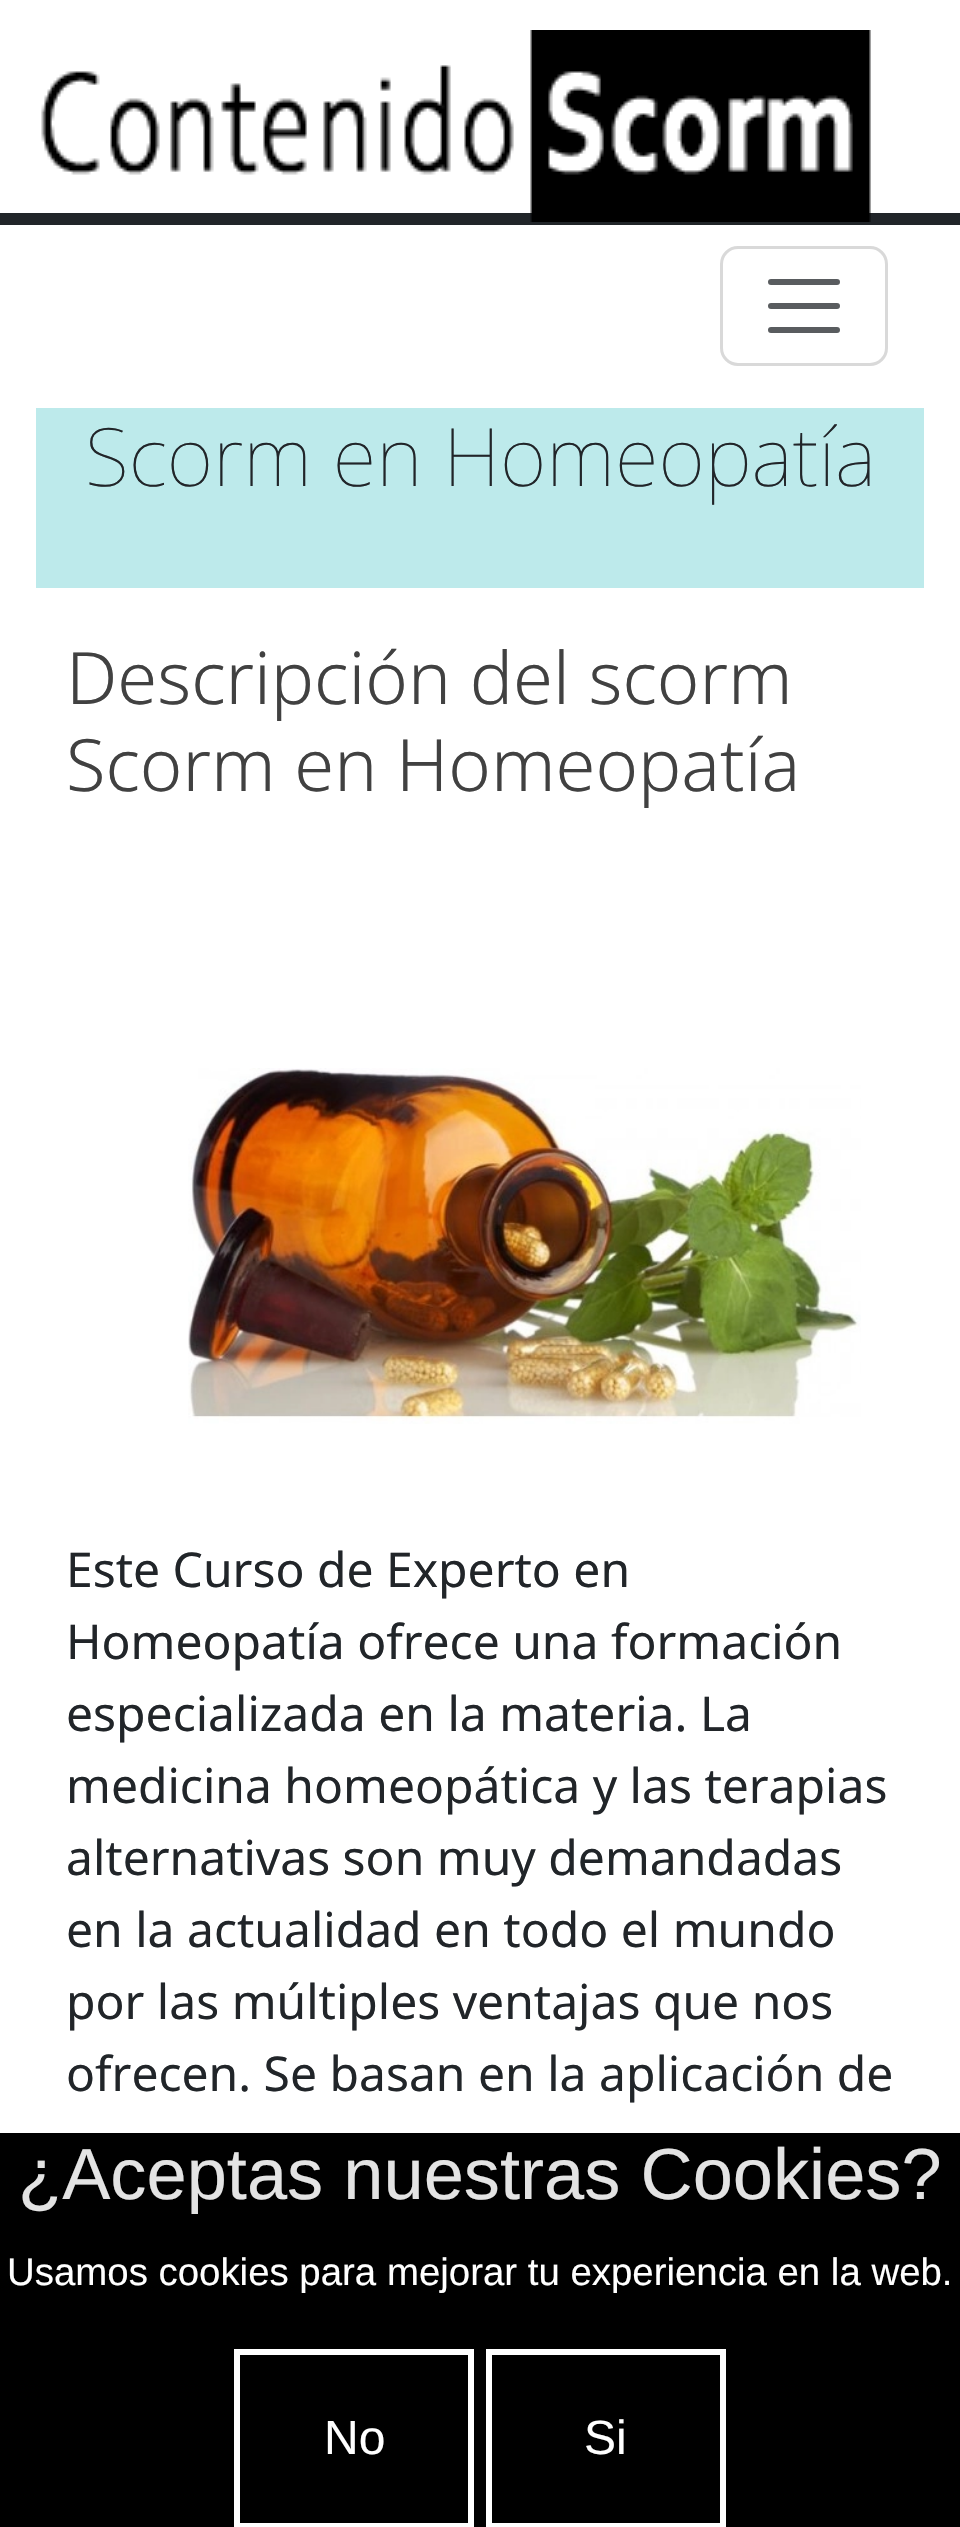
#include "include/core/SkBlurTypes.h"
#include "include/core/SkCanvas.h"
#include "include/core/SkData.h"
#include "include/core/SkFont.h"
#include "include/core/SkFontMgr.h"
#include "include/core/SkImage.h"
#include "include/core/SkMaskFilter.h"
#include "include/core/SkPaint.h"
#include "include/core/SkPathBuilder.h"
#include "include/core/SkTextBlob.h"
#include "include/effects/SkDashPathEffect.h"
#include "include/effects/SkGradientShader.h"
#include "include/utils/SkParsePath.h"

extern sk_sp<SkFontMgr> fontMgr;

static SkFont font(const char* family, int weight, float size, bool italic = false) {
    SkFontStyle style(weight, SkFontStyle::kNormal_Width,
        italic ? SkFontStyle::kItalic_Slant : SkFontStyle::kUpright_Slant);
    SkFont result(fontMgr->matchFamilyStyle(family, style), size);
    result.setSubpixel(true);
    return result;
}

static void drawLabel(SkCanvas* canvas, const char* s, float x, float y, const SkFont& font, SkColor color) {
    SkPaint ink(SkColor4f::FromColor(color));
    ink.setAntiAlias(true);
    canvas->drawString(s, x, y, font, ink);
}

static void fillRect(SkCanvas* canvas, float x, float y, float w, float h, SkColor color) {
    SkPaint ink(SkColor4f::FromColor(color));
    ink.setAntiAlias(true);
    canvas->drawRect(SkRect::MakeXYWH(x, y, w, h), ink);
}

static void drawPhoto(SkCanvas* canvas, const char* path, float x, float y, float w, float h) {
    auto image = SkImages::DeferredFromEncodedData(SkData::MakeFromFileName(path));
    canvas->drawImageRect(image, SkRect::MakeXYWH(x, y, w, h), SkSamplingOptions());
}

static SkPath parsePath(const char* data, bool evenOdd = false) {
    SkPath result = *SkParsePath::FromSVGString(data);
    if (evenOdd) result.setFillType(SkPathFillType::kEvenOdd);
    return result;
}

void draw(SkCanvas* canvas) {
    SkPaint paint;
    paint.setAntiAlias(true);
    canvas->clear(0xFFFFFFFF);
    fillRect(canvas, 0, 213, 960, 12, 0xFF212529);
    drawPhoto(canvas, "assets/img1.png", 41, 30, 830, 192);
    paint.setStroke(true);
    paint.setStrokeWidth(3);
    paint.setColor(0xFFD9D9D9);
    canvas->drawRoundRect(SkRect::MakeXYWH(721.5f, 247.5f, 165, 117), 16.5f, 16.5f, paint);
    paint.setStrokeWidth(6);
    paint.setStrokeCap(SkPaint::kRound_Cap);
    paint.setColor(0xFF595C5F);
    canvas->drawPath(parsePath("M771 282H837M771 306H837M771 330H837"), paint);
    fillRect(canvas, 36, 408, 888, 180, 0xFFBDEAEB);
    SkFont font1 = font("Noto Sans", 100, 80.5f);
    drawLabel(canvas, "Scorm en Homeopatía", 85, 486, font1, 0xFF212529);
    SkFont font2 = font("Noto Sans", 300, 72.25f);
    drawLabel(canvas, "Descripción del scorm", 66, 704, font2, 0xFF414141);
    drawLabel(canvas, "Scorm en Homeopatía", 66, 791, font2, 0xFF414141);
    drawPhoto(canvas, "assets/img2.png", 188, 1068, 673, 356);
    SkFont font3 = font("Noto Sans", 400, 48);
    drawLabel(canvas, "Este Curso de Experto en", 66, 1587, font3, 0xFF212529);
    drawLabel(canvas, "Homeopatía ofrece una formación", 66, 1659, font3, 0xFF212529);
    drawLabel(canvas, "especializada en la materia. La", 66, 1731, font3, 0xFF212529);
    drawLabel(canvas, "medicina homeopática y las terapias", 66, 1803, font3, 0xFF212529);
    drawLabel(canvas, "alternativas son muy demandadas", 66, 1875, font3, 0xFF212529);
    drawLabel(canvas, "en la actualidad en todo el mundo", 66, 1947, font3, 0xFF212529);
    drawLabel(canvas, "por las múltiples ventajas que nos", 66, 2019, font3, 0xFF212529);
    drawLabel(canvas, "ofrecen. Se basan en la aplicación de", 66, 2091, font3, 0xFF212529);
    fillRect(canvas, 0, 2133, 960, 394, 0xFF000000);
    SkFont font4 = font("Liberation Sans", 400, 72.25f);
    drawLabel(canvas, "¿Aceptas nuestras Cookies?", 18, 2199, font4, 0xFFE3E3E3);
    SkFont font5 = font("Liberation Sans", 400, 38.4f);
    drawLabel(canvas, "Usamos cookies para mejorar tu experiencia en la web.", 7, 2285, font5, 0xFFFFFFFF);
    paint.setStrokeCap(SkPaint::kButt_Cap);
    paint.setColor(0xFFFFFFFF);
    canvas->drawRect(SkRect::MakeXYWH(237, 2352, 234, 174), paint);
    SkFont font6 = font("Liberation Sans", 400, 48);
    drawLabel(canvas, "No", 324, 2454, font6, 0xFFFFFFFF);
    canvas->drawRect(SkRect::MakeXYWH(489, 2352, 234, 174), paint);
    drawLabel(canvas, "Si", 584, 2454, font6, 0xFFFFFFFF);
}
